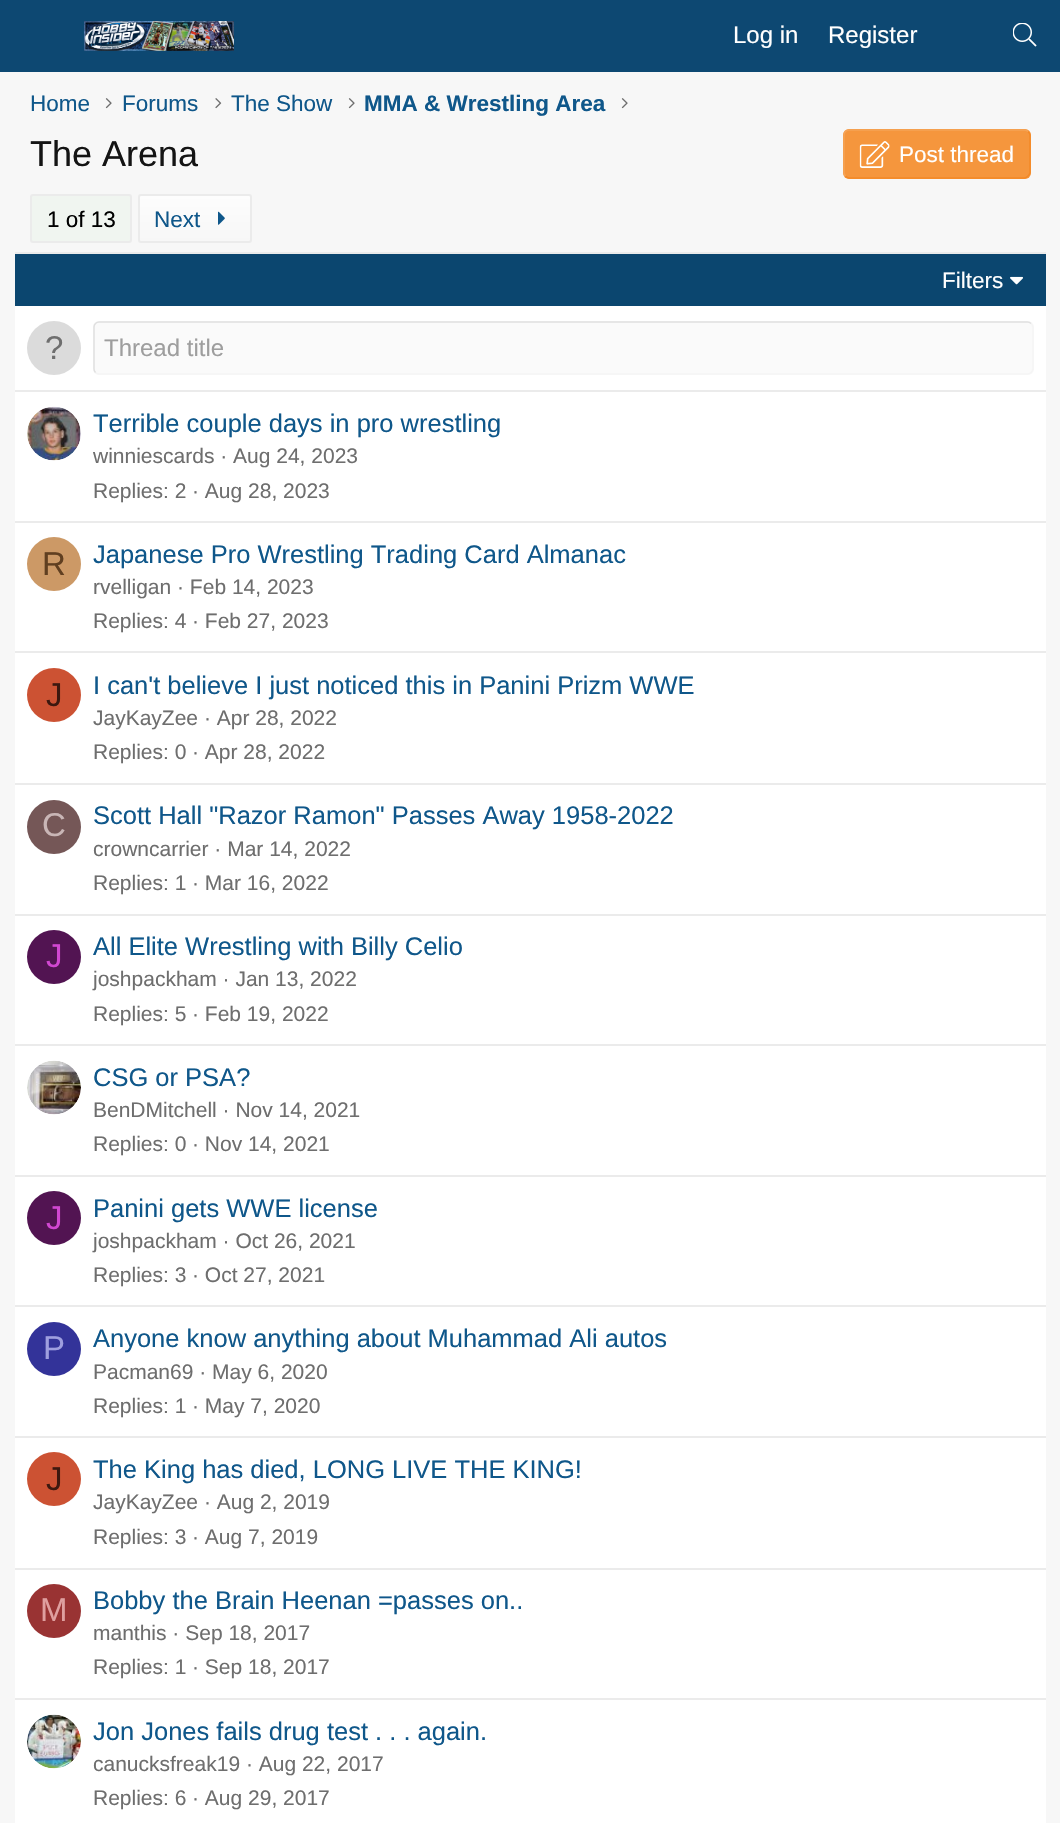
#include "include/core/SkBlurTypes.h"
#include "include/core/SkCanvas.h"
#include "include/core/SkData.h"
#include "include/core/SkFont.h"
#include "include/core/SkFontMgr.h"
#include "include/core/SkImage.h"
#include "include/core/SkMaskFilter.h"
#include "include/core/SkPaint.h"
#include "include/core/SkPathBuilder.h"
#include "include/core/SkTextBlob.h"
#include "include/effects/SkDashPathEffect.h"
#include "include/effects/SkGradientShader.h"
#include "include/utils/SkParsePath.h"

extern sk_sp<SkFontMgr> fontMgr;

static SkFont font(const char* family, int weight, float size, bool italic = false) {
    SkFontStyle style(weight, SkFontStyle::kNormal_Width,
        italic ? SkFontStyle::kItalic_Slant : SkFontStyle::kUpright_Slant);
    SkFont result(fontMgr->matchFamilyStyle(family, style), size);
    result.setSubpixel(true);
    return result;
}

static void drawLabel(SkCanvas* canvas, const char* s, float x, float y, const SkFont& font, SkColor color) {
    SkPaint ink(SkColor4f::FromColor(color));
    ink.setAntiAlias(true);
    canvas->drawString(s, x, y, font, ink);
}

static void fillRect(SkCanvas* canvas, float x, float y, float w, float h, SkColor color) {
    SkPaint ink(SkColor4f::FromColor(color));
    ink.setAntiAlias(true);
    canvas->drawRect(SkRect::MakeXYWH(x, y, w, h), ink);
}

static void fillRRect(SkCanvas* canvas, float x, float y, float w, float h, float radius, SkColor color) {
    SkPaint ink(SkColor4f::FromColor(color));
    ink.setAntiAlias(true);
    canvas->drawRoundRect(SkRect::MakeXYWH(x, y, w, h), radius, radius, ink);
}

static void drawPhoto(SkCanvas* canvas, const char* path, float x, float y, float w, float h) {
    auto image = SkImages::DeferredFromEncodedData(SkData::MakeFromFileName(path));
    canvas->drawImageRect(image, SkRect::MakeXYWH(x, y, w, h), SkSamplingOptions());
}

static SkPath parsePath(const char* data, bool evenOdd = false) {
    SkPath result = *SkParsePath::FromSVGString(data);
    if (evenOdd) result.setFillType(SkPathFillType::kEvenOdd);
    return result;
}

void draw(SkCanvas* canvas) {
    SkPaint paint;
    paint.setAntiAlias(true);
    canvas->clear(0xFFF7F7F7);
    fillRect(canvas, 0, 0, 1060, 72, 0xFF0D4872);
    drawPhoto(canvas, "assets/img1.png", 84, 21, 150, 30);
    SkFont font1 = font("Liberation Sans", 400, 24);
    drawLabel(canvas, "Log in", 733, 43, font1, 0xFFFFFFFF);
    drawLabel(canvas, "Register", 828, 43, font1, 0xFFFFFFFF);
    drawPhoto(canvas, "assets/img2.png", 1013, 23, 24, 24);
    SkFont font2 = font("Liberation Sans", 400, 22.5f);
    drawLabel(canvas, "Home", 30, 111, font2, 0xFF0F578A);
    drawPhoto(canvas, "assets/img3.png", 105, 98, 7, 11);
    drawLabel(canvas, "Forums", 122, 111, font2, 0xFF0F578A);
    drawPhoto(canvas, "assets/img4.png", 215, 98, 7, 11);
    drawLabel(canvas, "The Show", 231, 111, font2, 0xFF0F578A);
    drawPhoto(canvas, "assets/img3.png", 348, 98, 7, 11);
    SkFont font3 = font("Liberation Sans", 700, 22.5f);
    drawLabel(canvas, "MMA & Wrestling Area", 364, 111, font3, 0xFF0F578A);
    drawPhoto(canvas, "assets/img3.png", 621, 98, 7, 11);
    SkFont font4 = font("Liberation Sans", 400, 36);
    drawLabel(canvas, "The Arena", 30, 166, font4, 0xFF141414);
    fillRRect(canvas, 843, 129, 188, 50, 6, 0xFFF5963D);
    paint.setStroke(true);
    paint.setStrokeWidth(1.5f);
    paint.setColor(0xFFF48925);
    canvas->drawPath(parsePath("M1028 131.5C1029 132.5 1030 133.5 1030 135V172.5C1030 174 1029 175 1028 176C1027 177 1026 178 1024.5 178H849C847.5 178 846.5 177 845.5 176"), paint);
    paint.setColor(0xFFF6A355);
    canvas->drawPath(parsePath("M845.5 176C844.5 175 844 174 844 172.5V135C844 133.5 844.5 132.5 845.5 131.5C846.5 130.5 847.5 130 849 130H1024.5C1026 130 1027 130.5 1028 131.5"), paint);
    drawPhoto(canvas, "assets/img5.png", 859, 141, 31, 27);
    drawLabel(canvas, "Post thread", 899, 162, font2, 0xFFFFFFFF);
    paint.setStroke(false);
    paint.setColor(0xFFF0F5F0);
    canvas->drawRoundRect(SkRect::MakeXYWH(31, 195, 100, 47), 2, 2, paint);
    paint.setStroke(true);
    paint.setStrokeWidth(2);
    paint.setColor(0xFFEBEBEB);
    canvas->drawRoundRect(SkRect::MakeXYWH(31, 195, 100, 47), 2, 2, paint);
    drawLabel(canvas, "1 of 13", 47, 227, font2, 0xFF000000);
    canvas->save();
    canvas->clipPath(parsePath("M141 194H249C250.5 194 252 195.5 252 197V240C252 241.5 250.5 243 249 243H141C139.5 243 138 241.5 138 240V197C138 195.5 139.5 194 141 194Z"), true);
    paint.setStroke(false);
    {
        const SkColor colors[] = {0xFFF7F7F7, 0xFFFDFDFD};
        const float stops[] = {0, 1};
        const SkPoint ends[] = {{195, 242}, {195, 195}};
        paint.setShader(SkGradientShader::MakeLinear(ends, colors, stops, 2, SkTileMode::kClamp));
        paint.setAlpha(255);
    }
    canvas->drawRect(SkRect::MakeXYWH(138, 195, 114, 47), paint);
    canvas->restore();
    paint.setStroke(true);
    paint.setShader(nullptr);
    paint.setColor(0xFFEBEBEB);
    canvas->drawRoundRect(SkRect::MakeXYWH(139, 195, 112, 47), 2, 2, paint);
    drawLabel(canvas, "Next", 154, 227, font2, 0xFF0F578A);
    drawPhoto(canvas, "assets/img6.png", 218, 211, 7, 14);
    fillRect(canvas, 15, 306, 1031, 1517, 0xFFFFFFFF);
    fillRect(canvas, 15, 252, 1031, 2, 0xFFEBEBEB);
    fillRect(canvas, 15, 254, 1031, 52, 0xFF0B466F);
    drawLabel(canvas, "Filters", 942, 288, font2, 0xFFFFFFFF);
    drawPhoto(canvas, "assets/img7.png", 1010, 276, 13, 9);
    paint.setStroke(false);
    paint.setColor(0xFFDBDBDB);
    canvas->drawCircle(54, 348, 27, paint);
    SkFont font5 = font("Liberation Sans", 400, 33);
    drawLabel(canvas, "?", 45, 359, font5, 0xFF6E6E6E);
    fillRRect(canvas, 93, 321, 941, 54, 6, 0xFFFAFAFA);
    paint.setStroke(true);
    paint.setStrokeWidth(1.5f);
    paint.setColor(0xFFF5F5F5);
    canvas->drawPath(parsePath("M1031 323.5C1032 324.5 1033 325.5 1033 327V369C1033 370.5 1032 371.5 1031 372.5C1030 373.5 1029 374 1027.5 374H99C97.5 374 96.5 373.5 95.5 372.5"), paint);
    paint.setColor(0xFFE0E0E0);
    canvas->drawPath(parsePath("M95.5 372.5C94.5 371.5 94 370.5 94 369V327C94 325.5 94.5 324.5 95.5 323.5C96.5 322.5 97.5 322 99 322H1027.5C1029 322 1030 322.5 1031 323.5"), paint);
    drawLabel(canvas, "Thread title", 104, 356, font1, 0xFF9E9E9E);
    fillRect(canvas, 15, 390, 1031, 2, 0xFFEBEBEB);
    drawPhoto(canvas, "assets/img8.png", 27, 406, 54, 55);
    SkFont font6 = font("Liberation Sans", 400, 25.5f);
    drawLabel(canvas, "Terrible couple days in pro wrestling", 93, 432, font6, 0xFF0F578A);
    SkFont font7 = font("Liberation Sans", 400, 21);
    drawLabel(canvas, "winniescards · Aug 24, 2023", 93, 463, font7, 0xFF6E6E6E);
    drawLabel(canvas, "Replies: 2", 93, 498, font7, 0xFF6E6E6E);
    drawLabel(canvas, "· Aug 28, 2023", 192, 498, font7, 0xFF6E6E6E);
    fillRect(canvas, 15, 521, 1031, 2, 0xFFEBEBEB);
    paint.setStroke(false);
    paint.setColor(0xFFCC9966);
    canvas->drawCircle(54, 564, 27, paint);
    drawLabel(canvas, "R", 42, 575, font5, 0xFF603F20);
    drawLabel(canvas, "Japanese Pro Wrestling Trading Card Almanac", 93, 563, font6, 0xFF0F578A);
    drawLabel(canvas, "rvelligan · Feb 14, 2023", 93, 594, font7, 0xFF6E6E6E);
    drawLabel(canvas, "Replies: 4", 93, 628, font7, 0xFF6E6E6E);
    drawLabel(canvas, "· Feb 27, 2023", 192, 628, font7, 0xFF6E6E6E);
    fillRect(canvas, 15, 651, 1031, 2, 0xFFEBEBEB);
    paint.setColor(0xFFCC5233);
    canvas->drawCircle(54, 695, 27, paint);
    drawLabel(canvas, "J", 46, 706, font5, 0xFF3D180F);
    drawLabel(canvas, "I can't believe I just noticed this in Panini Prizm WWE", 93, 694, font6, 0xFF0F578A);
    drawLabel(canvas, "JayKayZee · Apr 28, 2022", 93, 725, font7, 0xFF6E6E6E);
    drawLabel(canvas, "Replies: 0", 93, 759, font7, 0xFF6E6E6E);
    drawLabel(canvas, "· Apr 28, 2022", 192, 759, font7, 0xFF6E6E6E);
    fillRect(canvas, 15, 783, 1031, 2, 0xFFEBEBEB);
    paint.setColor(0xFF755757);
    canvas->drawCircle(54, 827, 27, paint);
    drawLabel(canvas, "C", 42, 836, font5, 0xFFC9B6B6);
    drawLabel(canvas, "Scott Hall \"Razor Ramon\" Passes Away 1958-2022", 93, 824, font6, 0xFF0F578A);
    drawLabel(canvas, "crowncarrier · Mar 14, 2022", 93, 856, font7, 0xFF6E6E6E);
    drawLabel(canvas, "Replies: 1", 93, 890, font7, 0xFF6E6E6E);
    drawLabel(canvas, "· Mar 16, 2022", 192, 890, font7, 0xFF6E6E6E);
    fillRect(canvas, 15, 914, 1031, 2, 0xFFEBEBEB);
    paint.setColor(0xFF521452);
    canvas->drawCircle(54, 957, 27, paint);
    drawLabel(canvas, "J", 46, 967, font5, 0xFFD147D1);
    drawLabel(canvas, "All Elite Wrestling with Billy Celio", 93, 955, font6, 0xFF0F578A);
    drawLabel(canvas, "joshpackham · Jan 13, 2022", 93, 986, font7, 0xFF6E6E6E);
    drawLabel(canvas, "Replies: 5", 93, 1021, font7, 0xFF6E6E6E);
    drawLabel(canvas, "· Feb 19, 2022", 192, 1021, font7, 0xFF6E6E6E);
    fillRect(canvas, 15, 1044, 1031, 2, 0xFFEBEBEB);
    drawPhoto(canvas, "assets/img9.png", 27, 1060, 54, 55);
    drawLabel(canvas, "CSG or PSA?", 93, 1086, font6, 0xFF0F578A);
    drawLabel(canvas, "BenDMitchell · Nov 14, 2021", 93, 1117, font7, 0xFF6E6E6E);
    drawLabel(canvas, "Replies: 0", 93, 1151, font7, 0xFF6E6E6E);
    drawLabel(canvas, "· Nov 14, 2021", 192, 1151, font7, 0xFF6E6E6E);
    fillRect(canvas, 15, 1175, 1031, 2, 0xFFEBEBEB);
    canvas->drawCircle(54, 1218, 27, paint);
    drawLabel(canvas, "J", 46, 1229, font5, 0xFFD147D1);
    drawLabel(canvas, "Panini gets WWE license", 93, 1217, font6, 0xFF0F578A);
    drawLabel(canvas, "joshpackham · Oct 26, 2021", 93, 1248, font7, 0xFF6E6E6E);
    drawLabel(canvas, "Replies: 3", 93, 1282, font7, 0xFF6E6E6E);
    drawLabel(canvas, "· Oct 27, 2021", 192, 1282, font7, 0xFF6E6E6E);
    fillRect(canvas, 15, 1305, 1031, 2, 0xFFEBEBEB);
    paint.setColor(0xFF333399);
    canvas->drawCircle(54, 1349, 27, paint);
    drawLabel(canvas, "P", 43, 1359, font5, 0xFF9F9FDF);
    drawLabel(canvas, "Anyone know anything about Muhammad Ali autos", 93, 1347, font6, 0xFF0F578A);
    drawLabel(canvas, "Pacman69 · May 6, 2020", 93, 1379, font7, 0xFF6E6E6E);
    drawLabel(canvas, "Replies: 1", 93, 1413, font7, 0xFF6E6E6E);
    drawLabel(canvas, "· May 7, 2020", 192, 1413, font7, 0xFF6E6E6E);
    fillRect(canvas, 15, 1436, 1031, 2, 0xFFEBEBEB);
    paint.setColor(0xFFCC5233);
    canvas->drawCircle(54, 1479, 27, paint);
    drawLabel(canvas, "J", 46, 1490, font5, 0xFF3D180F);
    drawLabel(canvas, "The King has died, LONG LIVE THE KING!", 93, 1478, font6, 0xFF0F578A);
    drawLabel(canvas, "JayKayZee · Aug 2, 2019", 93, 1509, font7, 0xFF6E6E6E);
    drawLabel(canvas, "Replies: 3", 93, 1544, font7, 0xFF6E6E6E);
    drawLabel(canvas, "· Aug 7, 2019", 192, 1544, font7, 0xFF6E6E6E);
    fillRect(canvas, 15, 1568, 1031, 2, 0xFFEBEBEB);
    paint.setColor(0xFF993333);
    canvas->drawCircle(54, 1611, 27, paint);
    drawLabel(canvas, "M", 40, 1621, font5, 0xFFDF9F9F);
    drawLabel(canvas, "Bobby the Brain Heenan =passes on..", 93, 1609, font6, 0xFF0F578A);
    drawLabel(canvas, "manthis · Sep 18, 2017", 93, 1640, font7, 0xFF6E6E6E);
    drawLabel(canvas, "Replies: 1", 93, 1674, font7, 0xFF6E6E6E);
    drawLabel(canvas, "· Sep 18, 2017", 192, 1674, font7, 0xFF6E6E6E);
    fillRect(canvas, 15, 1698, 1031, 2, 0xFFEBEBEB);
    drawPhoto(canvas, "assets/img10.png", 27, 1714, 54, 55);
    drawLabel(canvas, "Jon Jones fails drug test . . . again.", 93, 1740, font6, 0xFF0F578A);
    drawLabel(canvas, "canucksfreak19 · Aug 22, 2017", 93, 1771, font7, 0xFF6E6E6E);
    drawLabel(canvas, "Replies: 6", 93, 1805, font7, 0xFF6E6E6E);
    drawLabel(canvas, "· Aug 29, 2017", 192, 1805, font7, 0xFF6E6E6E);
}
